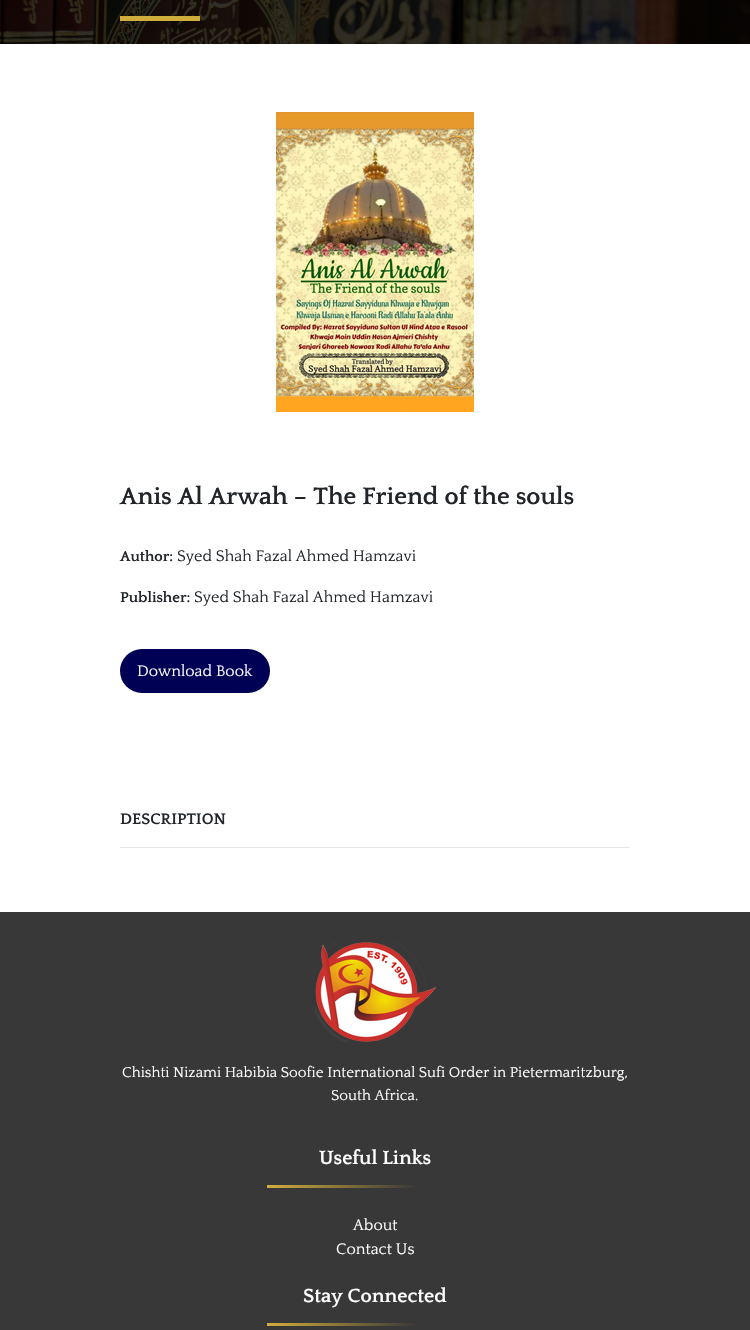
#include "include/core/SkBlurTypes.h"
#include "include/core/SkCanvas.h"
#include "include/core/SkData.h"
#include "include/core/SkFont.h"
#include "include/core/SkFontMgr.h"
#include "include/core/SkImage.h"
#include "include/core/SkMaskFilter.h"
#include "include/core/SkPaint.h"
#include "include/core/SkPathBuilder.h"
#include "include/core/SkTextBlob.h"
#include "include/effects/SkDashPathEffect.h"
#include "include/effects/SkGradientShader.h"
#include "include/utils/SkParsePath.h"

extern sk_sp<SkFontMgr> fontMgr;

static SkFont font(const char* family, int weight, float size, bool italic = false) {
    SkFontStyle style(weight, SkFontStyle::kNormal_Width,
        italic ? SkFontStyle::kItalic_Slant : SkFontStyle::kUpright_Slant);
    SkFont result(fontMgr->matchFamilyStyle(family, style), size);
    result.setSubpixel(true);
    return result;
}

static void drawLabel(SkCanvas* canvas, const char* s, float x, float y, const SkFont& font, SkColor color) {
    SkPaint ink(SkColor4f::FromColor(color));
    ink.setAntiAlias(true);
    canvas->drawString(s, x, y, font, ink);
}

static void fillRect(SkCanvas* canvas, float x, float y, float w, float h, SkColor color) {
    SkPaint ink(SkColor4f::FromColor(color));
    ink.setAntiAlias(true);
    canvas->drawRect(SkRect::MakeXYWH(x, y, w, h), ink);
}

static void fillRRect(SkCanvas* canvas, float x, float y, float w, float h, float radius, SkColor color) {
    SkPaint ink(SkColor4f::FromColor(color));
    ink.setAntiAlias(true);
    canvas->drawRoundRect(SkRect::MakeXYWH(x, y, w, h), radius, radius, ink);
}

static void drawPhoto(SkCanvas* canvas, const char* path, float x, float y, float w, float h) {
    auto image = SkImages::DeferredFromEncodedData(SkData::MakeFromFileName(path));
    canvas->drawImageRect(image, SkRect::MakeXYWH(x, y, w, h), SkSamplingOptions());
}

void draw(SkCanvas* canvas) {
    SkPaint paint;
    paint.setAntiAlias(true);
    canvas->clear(0xFFFFFFFF);
    drawPhoto(canvas, "assets/img1.png", 0, 0, 750, 44);
    fillRect(canvas, 120, 16, 80, 5, 0xFFD1AD3C);
    drawPhoto(canvas, "assets/img2.png", 276, 112, 198, 300);
    SkFont font1 = font("Quattrocento", 700, 25);
    drawLabel(canvas, "Anis Al Arwah – The Friend of the souls", 120, 504, font1, 0xFF212529);
    SkFont font2 = font("Quattrocento", 700, 15);
    drawLabel(canvas, "Author:", 120, 561, font2, 0xFF212529);
    SkFont font3 = font("Quattrocento", 400, 16);
    drawLabel(canvas, "Syed Shah Fazal Ahmed Hamzavi", 177, 561, font3, 0xFF212529);
    drawLabel(canvas, "Publisher:", 120, 602, font2, 0xFF212529);
    drawLabel(canvas, "Syed Shah Fazal Ahmed Hamzavi", 194, 602, font3, 0xFF212529);
    fillRRect(canvas, 120, 649, 150, 44, 22, 0xFF000055);
    drawLabel(canvas, "Download Book", 137, 676, font3, 0xFFFFFFFF);
    SkFont font4 = font("Quattrocento", 700, 16);
    drawLabel(canvas, "DESCRIPTION", 120, 824, font4, 0xFF212529);
    fillRect(canvas, 120, 847, 510, 1, 0xFFE6E6E6);
    fillRect(canvas, 0, 912, 750, 418, 0xFF383838);
    drawPhoto(canvas, "assets/img3.png", 315, 942, 121, 100);
    SkFont font5 = font("Quattrocento", 400, 15);
    drawLabel(canvas, "Chishti Nizami Habibia Soofie International Sufi Order in Pietermaritzburg,", 122, 1077, font5, 0xFFFFFFFF);
    drawLabel(canvas, "South Africa.", 331, 1100, font5, 0xFFFFFFFF);
    SkFont font6 = font("Quattrocento", 700, 20);
    drawLabel(canvas, "Useful Links", 319, 1164, font6, 0xFFFFFFFF);
    {
        const SkColor colors[] = {0xFFD1AD3C, 0xFF383838};
        const float stops[] = {0, 1};
        const SkPoint ends[] = {{267, 1185}, {417, 1188}};
        paint.setShader(SkGradientShader::MakeLinear(ends, colors, stops, 2, SkTileMode::kClamp));
        paint.setAlpha(255);
    }
    canvas->drawRect(SkRect::MakeXYWH(267, 1185, 150, 3), paint);
    drawLabel(canvas, "About", 353, 1230, font3, 0xFFFFFFFF);
    drawLabel(canvas, "Contact Us", 336, 1254, font3, 0xFFFFFFFF);
    drawLabel(canvas, "Stay Connected", 303, 1302, font6, 0xFFFFFFFF);
    {
        const SkColor colors[] = {0xFFD1AD3C, 0xFF383838};
        const float stops[] = {0, 1};
        const SkPoint ends[] = {{267, 1323}, {417, 1326}};
        paint.setShader(SkGradientShader::MakeLinear(ends, colors, stops, 2, SkTileMode::kClamp));
        paint.setAlpha(255);
    }
    canvas->drawRect(SkRect::MakeXYWH(267, 1323, 150, 3), paint);
}
